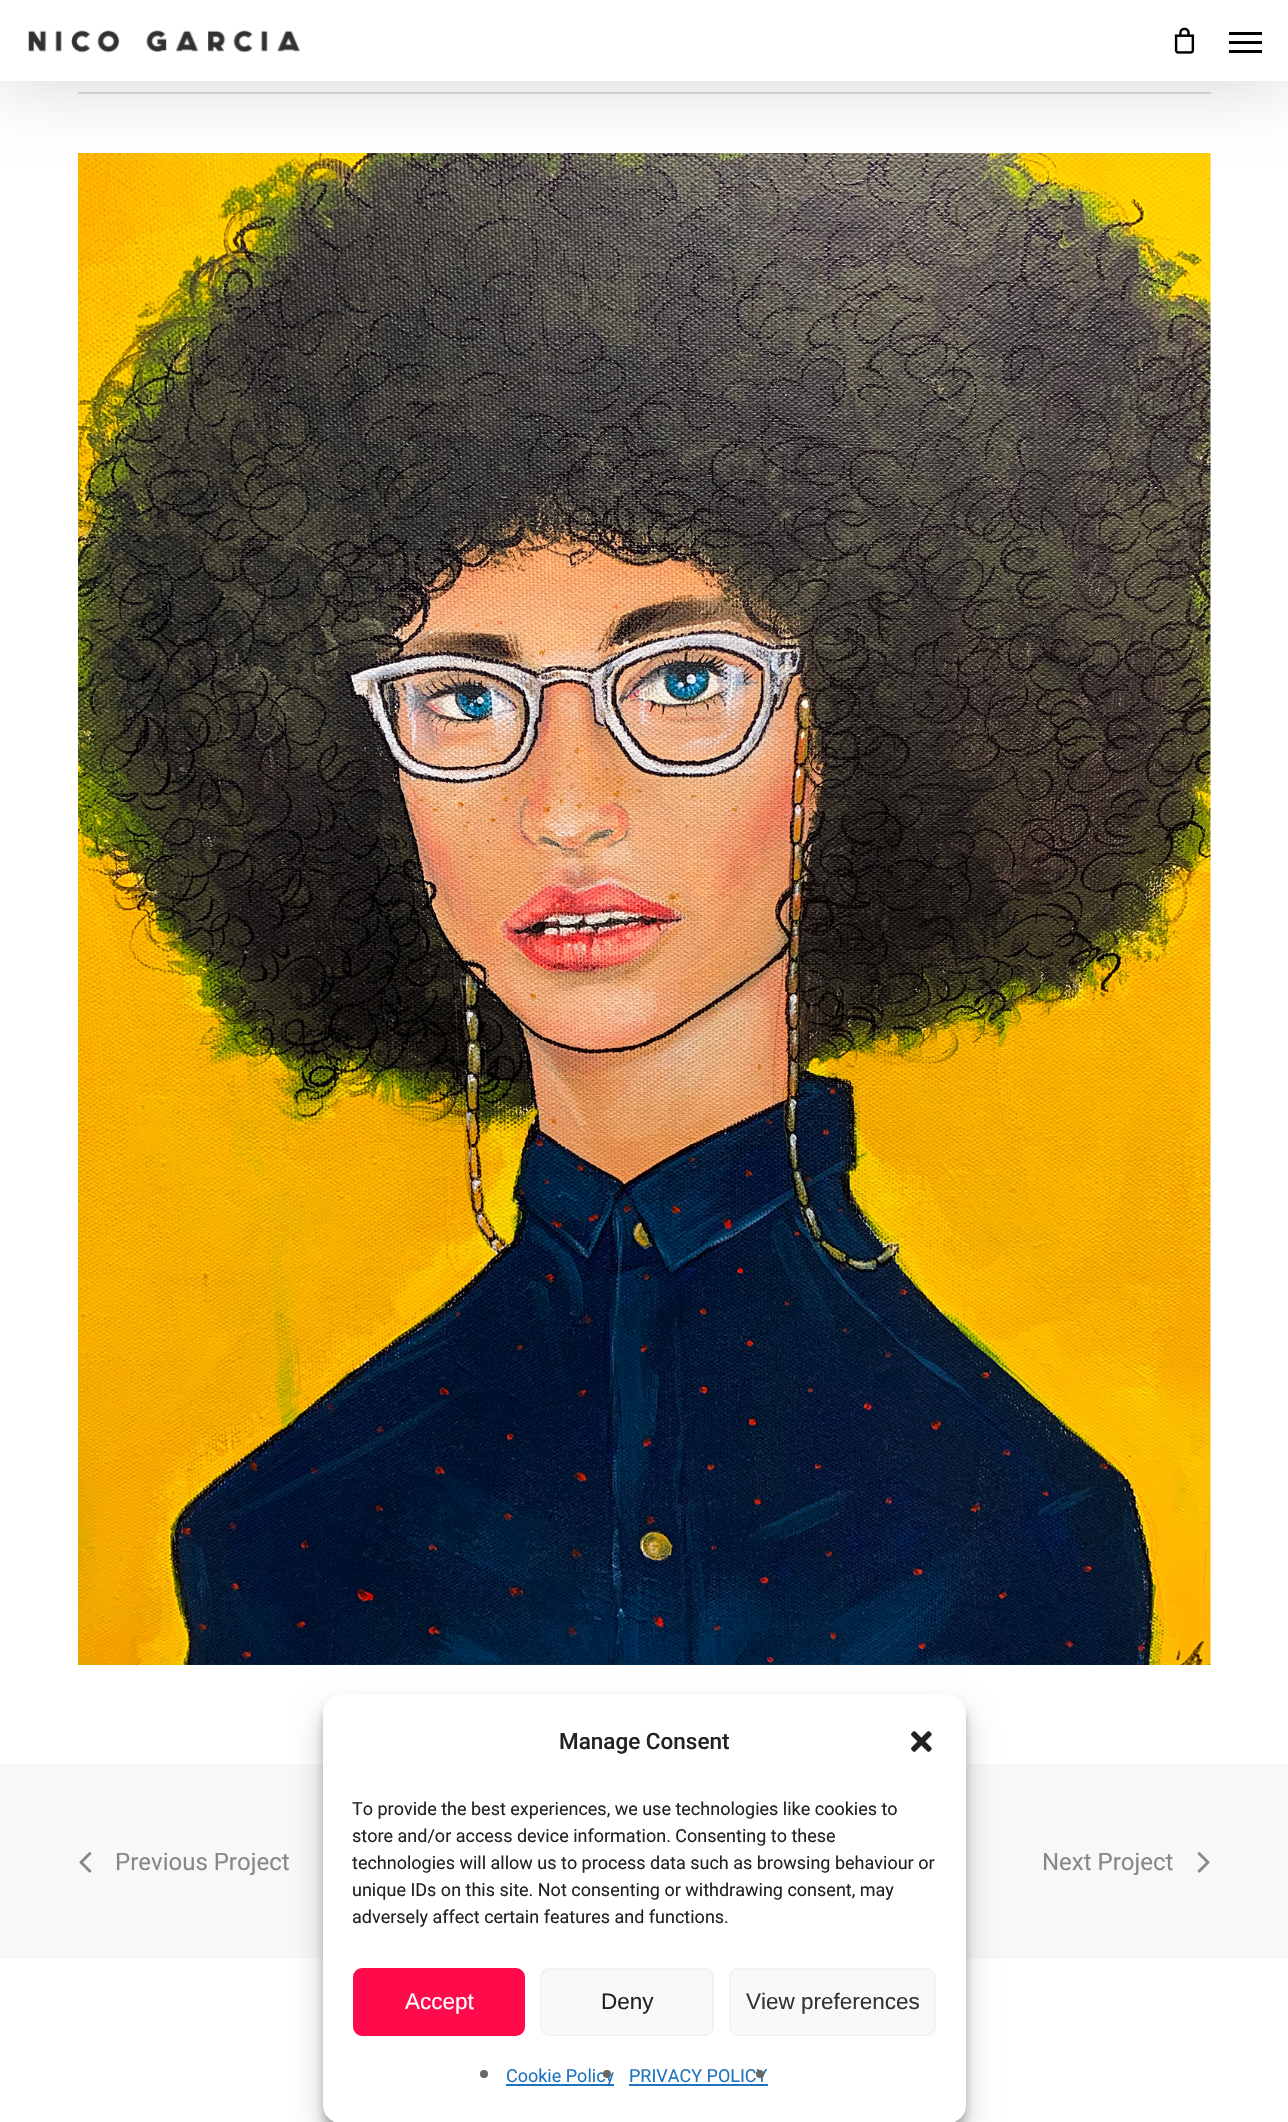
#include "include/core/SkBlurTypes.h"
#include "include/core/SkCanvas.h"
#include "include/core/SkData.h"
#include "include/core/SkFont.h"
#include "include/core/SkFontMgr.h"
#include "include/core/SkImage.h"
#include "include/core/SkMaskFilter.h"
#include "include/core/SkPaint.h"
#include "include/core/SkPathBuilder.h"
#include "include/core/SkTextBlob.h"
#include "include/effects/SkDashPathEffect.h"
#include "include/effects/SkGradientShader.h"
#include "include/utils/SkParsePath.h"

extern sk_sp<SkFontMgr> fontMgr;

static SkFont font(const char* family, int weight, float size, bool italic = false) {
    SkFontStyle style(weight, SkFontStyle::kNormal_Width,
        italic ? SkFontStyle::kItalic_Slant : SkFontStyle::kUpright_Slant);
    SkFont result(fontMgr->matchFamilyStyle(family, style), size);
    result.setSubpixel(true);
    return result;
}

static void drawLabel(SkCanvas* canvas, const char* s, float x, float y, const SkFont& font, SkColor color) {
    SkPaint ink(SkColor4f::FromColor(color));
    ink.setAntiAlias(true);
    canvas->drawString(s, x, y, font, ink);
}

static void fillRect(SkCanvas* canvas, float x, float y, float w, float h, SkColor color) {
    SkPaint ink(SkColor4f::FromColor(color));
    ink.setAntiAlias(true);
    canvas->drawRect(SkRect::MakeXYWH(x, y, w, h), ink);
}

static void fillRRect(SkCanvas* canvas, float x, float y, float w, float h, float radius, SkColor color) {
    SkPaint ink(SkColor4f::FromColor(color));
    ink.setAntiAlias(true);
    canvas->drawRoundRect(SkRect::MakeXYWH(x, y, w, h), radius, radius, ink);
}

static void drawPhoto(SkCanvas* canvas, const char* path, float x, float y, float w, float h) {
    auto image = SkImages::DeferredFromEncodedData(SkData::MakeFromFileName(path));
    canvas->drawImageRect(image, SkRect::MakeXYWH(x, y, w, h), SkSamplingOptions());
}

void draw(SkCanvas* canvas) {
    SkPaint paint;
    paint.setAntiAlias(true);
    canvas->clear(0xFFFFFFFF);
    fillRect(canvas, 78, 92, 1133, 2, 0xFFDDDDDD);
    drawPhoto(canvas, "assets/img4.png", 78, 153, 1133, 1512);
    paint.setColor(0x26000000);
    paint.setMaskFilter(SkMaskFilter::MakeBlur(kNormal_SkBlurStyle, 34));
    canvas->drawRect(SkRect::MakeXYWH(0, 5, 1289, 81), paint);
    paint.setMaskFilter(nullptr);
    fillRect(canvas, 0, 0, 1288, 81, 0xFFFFFFFF);
    drawPhoto(canvas, "assets/img1.png", 28, 30, 272, 23);
    drawPhoto(canvas, "assets/img2.png", 1174, 27, 21, 27);
    fillRect(canvas, 1229, 32, 33, 3, 0xFF000000);
    fillRect(canvas, 1229, 50, 33, 3, 0xFF000000);
    fillRect(canvas, 1229, 41, 33, 3, 0xFF000000);
    fillRect(canvas, 0, 1764, 1288, 195, 0xFFF8F8F8);
    paint.setColor(0x3B000000);
    paint.setMaskFilter(SkMaskFilter::MakeBlur(kNormal_SkBlurStyle, 4.5f));
    canvas->drawRoundRect(SkRect::MakeXYWH(323, 1704, 643, 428), 18, 18, paint);
    paint.setMaskFilter(nullptr);
    paint.setColor(0x30000000);
    paint.setMaskFilter(SkMaskFilter::MakeBlur(kNormal_SkBlurStyle, 15));
    canvas->drawRoundRect(SkRect::MakeXYWH(323, 1710, 643, 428), 18, 18, paint);
    paint.setMaskFilter(nullptr);
    fillRRect(canvas, 323, 1695, 643, 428, 18, 0xFFFFFFFF);
    SkFont font1 = font("Roboto", 500, 22.5f);
    drawLabel(canvas, "Manage Consent", 559, 1749, font1, 0xFF222222);
    drawPhoto(canvas, "assets/img3.png", 911, 1731, 21, 21);
    SkFont font2 = font("Roboto", 400, 18);
    drawLabel(canvas, "To provide the best experiences, we use technologies like cookies to", 352, 1815, font2, 0xFF222222);
    drawLabel(canvas, "store and/or access device information. Consenting to these", 352, 1842, font2, 0xFF222222);
    drawLabel(canvas, "technologies will allow us to process data such as browsing behaviour or", 352, 1869, font2, 0xFF222222);
    drawLabel(canvas, "unique IDs on this site. Not consenting or withdrawing consent, may", 352, 1896, font2, 0xFF222222);
    drawLabel(canvas, "adversely affect certain features and functions.", 352, 1923, font2, 0xFF222222);
    paint.setColor(0xFFFF0A4B);
    canvas->drawRoundRect(SkRect::MakeXYWH(354, 1969, 170, 66), 8, 8, paint);
    paint.setStroke(true);
    paint.setStrokeWidth(2);
    canvas->drawRoundRect(SkRect::MakeXYWH(354, 1969, 170, 66), 8, 8, paint);
    SkFont font3 = font("Liberation Sans", 400, 22.5f);
    drawLabel(canvas, "Accept", 405, 2009, font3, 0xFFFFFFFF);
    paint.setStroke(false);
    paint.setColor(0xFFF9F9F9);
    canvas->drawRoundRect(SkRect::MakeXYWH(541, 1969, 172, 66), 8, 8, paint);
    paint.setStroke(true);
    paint.setColor(0xFFF2F2F2);
    canvas->drawRoundRect(SkRect::MakeXYWH(541, 1969, 172, 66), 8, 8, paint);
    drawLabel(canvas, "Deny", 601, 2009, font3, 0xFF222222);
    paint.setStroke(false);
    paint.setColor(0xFFF9F9F9);
    canvas->drawRoundRect(SkRect::MakeXYWH(730, 1969, 205, 66), 8, 8, paint);
    paint.setStroke(true);
    paint.setColor(0xFFF2F2F2);
    canvas->drawRoundRect(SkRect::MakeXYWH(730, 1969, 205, 66), 8, 8, paint);
    drawLabel(canvas, "View preferences", 746, 2009, font3, 0xFF333333);
    paint.setStroke(false);
    paint.setColor(0xFF676767);
    canvas->drawCircle(484, 2074, 4, paint);
    fillRect(canvas, 506, 2084, 108, 2, 0xFF1E73BE);
    drawLabel(canvas, "Cookie Policy", 506, 2082, font2, 0xFF1E73BE);
    canvas->drawCircle(607, 2074, 4, paint);
    drawLabel(canvas, "PRIVACY POLICY", 629, 2082, font2, 0xFF1E73BE);
    fillRect(canvas, 629, 2084, 139, 2, 0xFF1E73BE);
    canvas->drawCircle(760, 2074, 4, paint);
    drawPhoto(canvas, "assets/img5.png", 79, 1852, 13, 21);
    SkFont font4 = font("Roboto", 400, 24);
    drawLabel(canvas, "Previous Project", 115, 1870, font4, 0xFF888888);
    drawLabel(canvas, "Next Project", 1042, 1870, font4, 0xFF888888);
    drawPhoto(canvas, "assets/img6.png", 1197, 1852, 13, 21);
}
